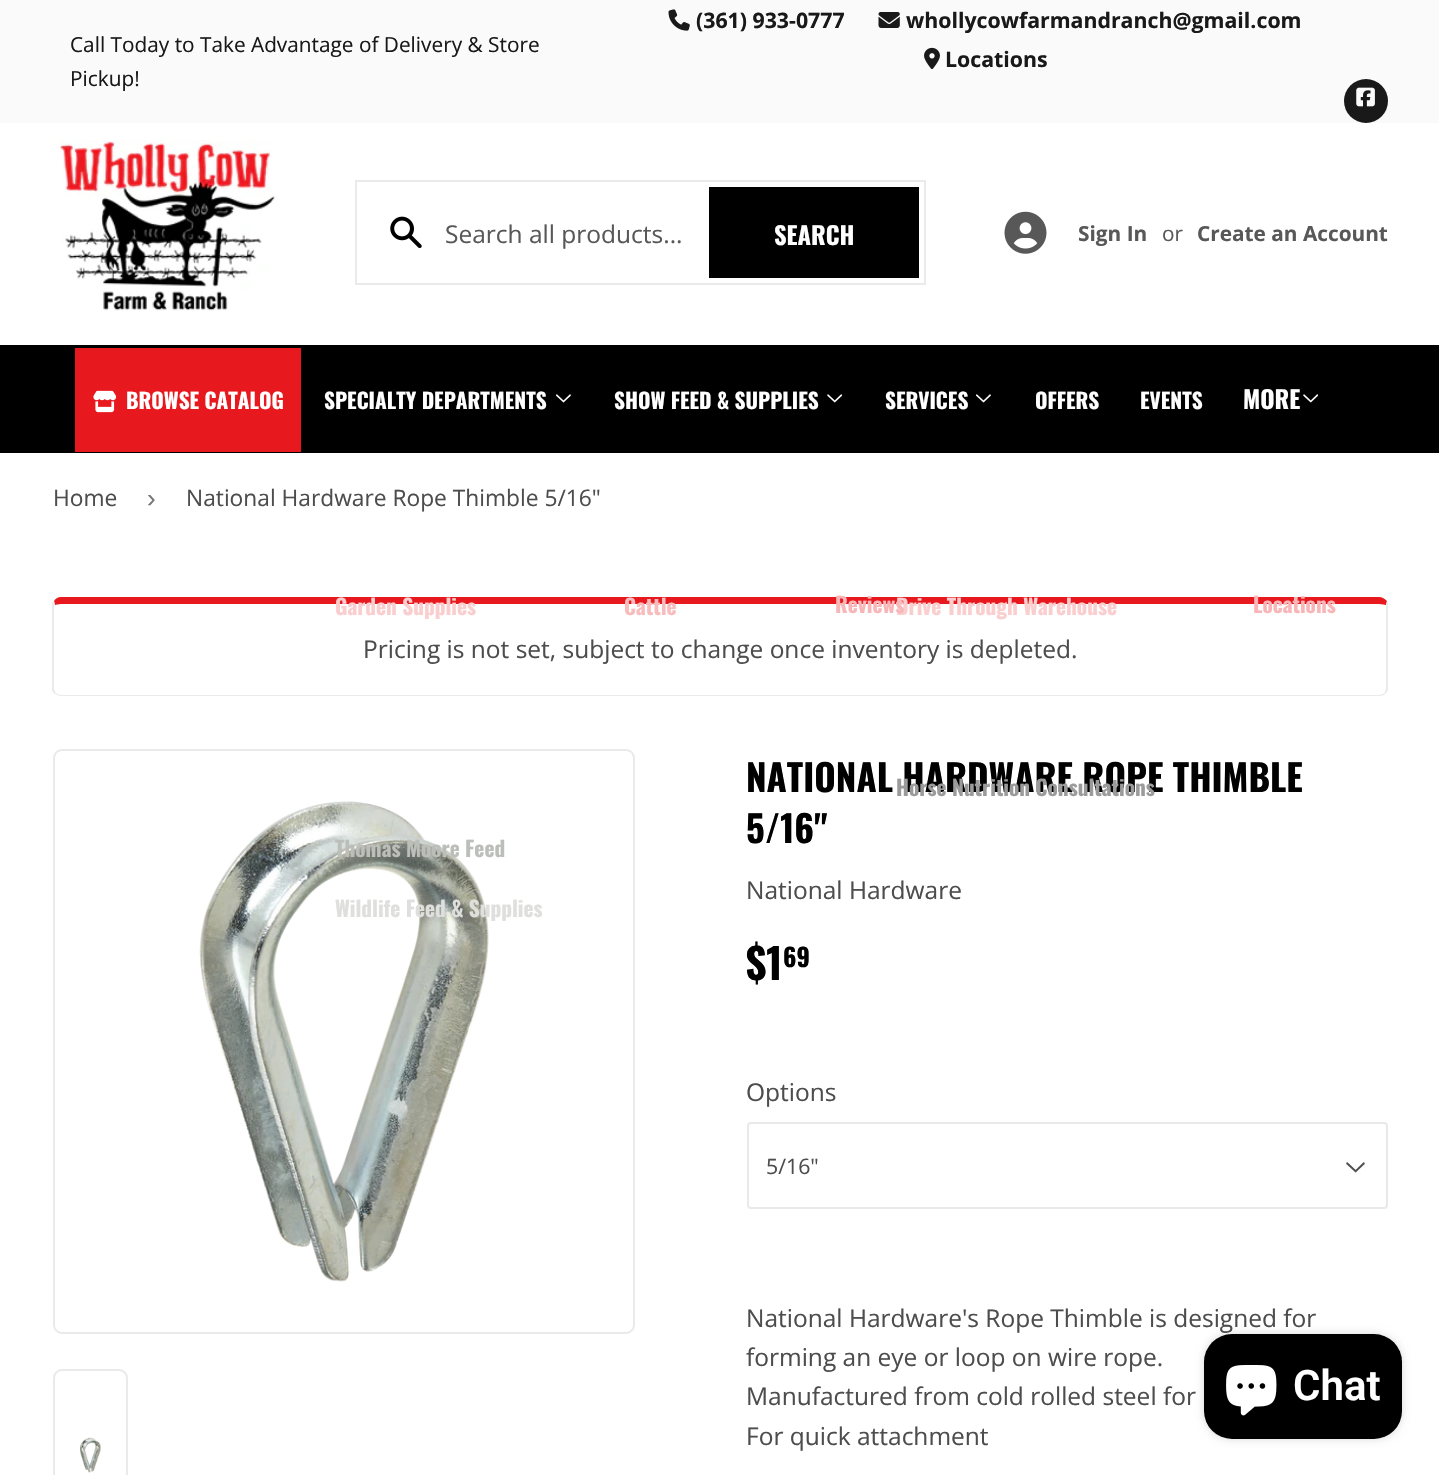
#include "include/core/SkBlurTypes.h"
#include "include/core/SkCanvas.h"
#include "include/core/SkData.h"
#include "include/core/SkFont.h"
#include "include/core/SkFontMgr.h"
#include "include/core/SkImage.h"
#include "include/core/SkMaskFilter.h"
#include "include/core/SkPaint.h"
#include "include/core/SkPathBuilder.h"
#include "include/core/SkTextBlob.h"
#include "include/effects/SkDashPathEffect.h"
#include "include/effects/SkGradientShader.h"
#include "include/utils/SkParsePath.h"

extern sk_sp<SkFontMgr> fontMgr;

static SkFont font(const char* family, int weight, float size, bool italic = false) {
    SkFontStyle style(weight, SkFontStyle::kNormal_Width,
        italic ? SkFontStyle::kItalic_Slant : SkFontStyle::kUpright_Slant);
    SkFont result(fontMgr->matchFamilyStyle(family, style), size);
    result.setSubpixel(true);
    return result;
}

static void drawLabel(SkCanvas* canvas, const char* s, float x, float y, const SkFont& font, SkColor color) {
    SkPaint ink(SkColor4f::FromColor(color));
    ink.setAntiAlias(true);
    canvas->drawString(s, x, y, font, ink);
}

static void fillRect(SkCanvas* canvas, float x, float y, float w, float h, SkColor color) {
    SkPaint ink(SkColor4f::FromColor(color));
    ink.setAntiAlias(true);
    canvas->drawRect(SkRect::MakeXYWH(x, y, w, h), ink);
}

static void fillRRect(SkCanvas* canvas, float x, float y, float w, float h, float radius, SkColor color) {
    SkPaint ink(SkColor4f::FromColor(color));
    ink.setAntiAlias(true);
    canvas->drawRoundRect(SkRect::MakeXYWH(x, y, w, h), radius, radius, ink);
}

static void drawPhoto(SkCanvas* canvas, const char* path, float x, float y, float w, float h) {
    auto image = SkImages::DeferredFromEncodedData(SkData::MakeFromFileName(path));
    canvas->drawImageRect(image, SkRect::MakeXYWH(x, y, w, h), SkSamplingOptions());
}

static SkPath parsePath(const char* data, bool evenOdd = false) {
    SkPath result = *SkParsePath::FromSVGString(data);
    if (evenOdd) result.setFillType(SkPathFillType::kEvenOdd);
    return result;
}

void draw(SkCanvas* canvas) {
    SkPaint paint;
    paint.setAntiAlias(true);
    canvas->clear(0xFFFFFFFF);
    fillRect(canvas, 0, 0, 1439, 123, 0xFFFAFAFA);
    SkFont font1 = font("Open Sans", 400, 20.8f);
    drawLabel(canvas, "Call Today to Take Advantage of Delivery & Store", 70, 52, font1, 0xFF191919);
    drawLabel(canvas, "Pickup!", 70, 86, font1, 0xFF191919);
    drawPhoto(canvas, "assets/img1.png", 668, 9, 22, 22);
    SkFont font2 = font("Open Sans", 700, 21.3f);
    drawLabel(canvas, "(361) 933-0777", 696, 28, font2, 0xFF191919);
    drawPhoto(canvas, "assets/img2.png", 878, 12, 22, 16);
    drawLabel(canvas, "whollycowfarmandranch@gmail.com", 906, 28, font2, 0xFF191919);
    drawPhoto(canvas, "assets/img3.png", 924, 47, 16, 23);
    drawLabel(canvas, "Locations", 945, 67, font2, 0xFF191919);
    paint.setColor(0xFF191919);
    canvas->drawCircle(1366, 101, 22, paint);
    drawPhoto(canvas, "assets/img4.png", 1356, 87, 19, 20);
    drawPhoto(canvas, "assets/img5.png", 53, 140, 222, 171);
    paint.setStroke(true);
    paint.setStrokeWidth(2);
    paint.setColor(0xFFEAEAEA);
    canvas->drawRect(SkRect::MakeXYWH(356, 181, 569, 103), paint);
    drawPhoto(canvas, "assets/img6.png", 390, 216, 32, 32);
    SkFont font3 = font("Open Sans", 400, 24.5f);
    drawLabel(canvas, "Search all products...", 445, 243, font3, 0xFF585858);
    fillRect(canvas, 709, 187, 210, 91, 0xFF000000);
    SkFont font4 = font("Oswald", 700, 24.5f);
    drawLabel(canvas, "SEARCH", 774, 245, font4, 0xFFFFFFFF);
    drawPhoto(canvas, "assets/img7.png", 1004, 211, 43, 43);
    SkFont font5 = font("Open Sans", 700, 20.8f);
    drawLabel(canvas, "Sign In", 1078, 241, font5, 0xFF585858);
    drawLabel(canvas, "or", 1162, 241, font1, 0xFF585858);
    drawLabel(canvas, "Create an Account", 1197, 241, font5, 0xFF585858);
    fillRect(canvas, 0, 345, 1439, 108, 0xFF000000);
    fillRect(canvas, 75, 348, 226, 104, 0xFFE8191E);
    drawPhoto(canvas, "assets/img8.png", 93, 390, 24, 23);
    SkFont font6 = font("Oswald", 700, 21.3f);
    drawLabel(canvas, "BROWSE CATALOG", 126, 409, font6, 0xFFFFFFFF);
    drawLabel(canvas, "SPECIALTY DEPARTMENTS", 324, 409, font6, 0xFFFFFFFF);
    drawPhoto(canvas, "assets/img9.png", 556, 394, 15, 9);
    paint.setStroke(false);
    paint.setColor(0xFFE8191E);
    canvas->drawPath(parsePath("M61 597C58 597 55 599 54 601L55 605C56 605 58 604 61 604H1379C1382 604 1385 605 1386 605L1387 601C1385 599 1382 597 1379 597Z"), paint);
    drawLabel(canvas, "Garden Supplies", 335, 615, font6, 0xFFFACECF);
    paint.setStroke(true);
    paint.setColor(0xFFEAEAEA);
    canvas->drawRoundRect(SkRect::MakeXYWH(54, 750, 580, 583), 8, 8, paint);
    drawPhoto(canvas, "assets/img11.png", 199, 801, 290, 481);
    drawLabel(canvas, "Thomas Moore Feed", 335, 857, font6, 0xFFBBBEB9);
    drawLabel(canvas, "Wildlife Feed & Supplies", 335, 917, font6, 0xFFDFE0DD);
    drawLabel(canvas, "SHOW FEED & SUPPLIES", 614, 409, font6, 0xFFFFFFFF);
    drawPhoto(canvas, "assets/img10.png", 827, 394, 16, 9);
    drawLabel(canvas, "Cattle", 624, 615, font6, 0xFFF8BCBD);
    drawLabel(canvas, "MORE", 1243, 409, font4, 0xFFFFFFFF);
    drawPhoto(canvas, "assets/img10.png", 1303, 394, 16, 9);
    drawLabel(canvas, "Drive Through Warehouse", 896, 615, font6, 0xFFFACECF);
    drawLabel(canvas, "Reviews", 835, 613, font6, 0xFFF8B6B8);
    drawLabel(canvas, "Locations", 1253, 613, font6, 0xFFF8B6B8);
    drawLabel(canvas, "SERVICES", 885, 409, font6, 0xFFFFFFFF);
    drawPhoto(canvas, "assets/img9.png", 976, 394, 15, 9);
    SkFont font7 = font("Oswald", 700, 36.75f);
    drawLabel(canvas, "NATIONAL HARDWARE ROPE THIMBLE", 746, 792, font7, 0xFF000000);
    drawLabel(canvas, "Horse Nutrition Consultations", 896, 796, font6, 0xFF9B9B9B);
    drawLabel(canvas, "OFFERS", 1035, 409, font6, 0xFFFFFFFF);
    drawLabel(canvas, "EVENTS", 1140, 409, font6, 0xFFFFFFFF);
    SkFont font8 = font("Open Sans", 400, 22.75f);
    drawLabel(canvas, "Home", 53, 506, font8, 0xFF4D4D4D);
    SkFont font9 = font("Liberation Sans", 400, 26);
    drawLabel(canvas, "›", 147, 507, font9, 0xFF767676);
    drawLabel(canvas, "National Hardware Rope Thimble 5/16\"", 186, 506, font8, 0xFF4D4D4D);
    paint.setStroke(false);
    canvas->drawPath(parsePath("M1388 690C1387 692 1386 693 1385 694L1384 693C1385 692 1386 690 1386 688V606V605L1387 601L1388 604Z"), paint);
    canvas->drawPath(parsePath("M1385 694C1384 695 1381 696 1379 696H61C59 696 57 695 55 694L56 693C57 694 59 695 61 695H1379C1381 695 1383 694 1384 693Z"), paint);
    canvas->drawPath(parsePath("M52 603L54 601L55 605L54 606V688C54 690 55 692 56 693L55 694L52 691Z"), paint);
    drawLabel(canvas, "Pricing is not set, subject to change once inventory is depleted.", 363, 658, font3, 0xFF4D4D4D);
    paint.setStroke(true);
    canvas->drawRoundRect(SkRect::MakeXYWH(54, 1370, 73, 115), 8, 8, paint);
    drawPhoto(canvas, "assets/img12.png", 79, 1437, 22, 36);
    drawLabel(canvas, "5/16\"", 746, 843, font7, 0xFF000000);
    drawLabel(canvas, "National Hardware", 746, 899, font3, 0xFF4D4D4D);
    SkFont font10 = font("Oswald", 700, 42);
    drawLabel(canvas, "$1", 746, 980, font10, 0xFF000000);
    SkFont font11 = font("Oswald", 700, 25);
    drawLabel(canvas, "69", 783, 967, font11, 0xFF000000);
    drawLabel(canvas, "Options", 746, 1101, font3, 0xFF4D4D4D);
    drawPhoto(canvas, "assets/img13.png", 1346, 1162, 19, 11);
    paint.setColor(0xFFE9E9E9);
    canvas->drawRoundRect(SkRect::MakeXYWH(748, 1123, 639, 85), 3, 3, paint);
    SkFont font12 = font("Open Sans", 400, 21.3f);
    drawLabel(canvas, "5/16\"", 766, 1174, font12, 0xFF4D4D4D);
    drawLabel(canvas, "National Hardware's Rope Thimble is designed for", 746, 1327, font3, 0xFF4D4D4D);
    drawLabel(canvas, "forming an eye or loop on wire rope.", 746, 1366, font3, 0xFF4D4D4D);
    drawLabel(canvas, "Manufactured from cold rolled steel for", 746, 1405, font3, 0xFF4D4D4D);
    drawLabel(canvas, "For quick attachment", 746, 1445, font3, 0xFF4D4D4D);
    paint.setStroke(false);
    paint.setColor(0x26000000);
    paint.setMaskFilter(SkMaskFilter::MakeBlur(kNormal_SkBlurStyle, 4.5f));
    canvas->drawRoundRect(SkRect::MakeXYWH(1204, 1334, 198, 105), 28, 28, paint);
    paint.setMaskFilter(nullptr);
    fillRRect(canvas, 1204, 1334, 198, 105, 28, 0xFF000000);
    drawPhoto(canvas, "assets/img14.png", 1226, 1365, 51, 51);
    SkFont font13 = font("Roboto", 600, 42);
    drawLabel(canvas, "Chat", 1293, 1400, font13, 0xFFFFFFFF);
}
